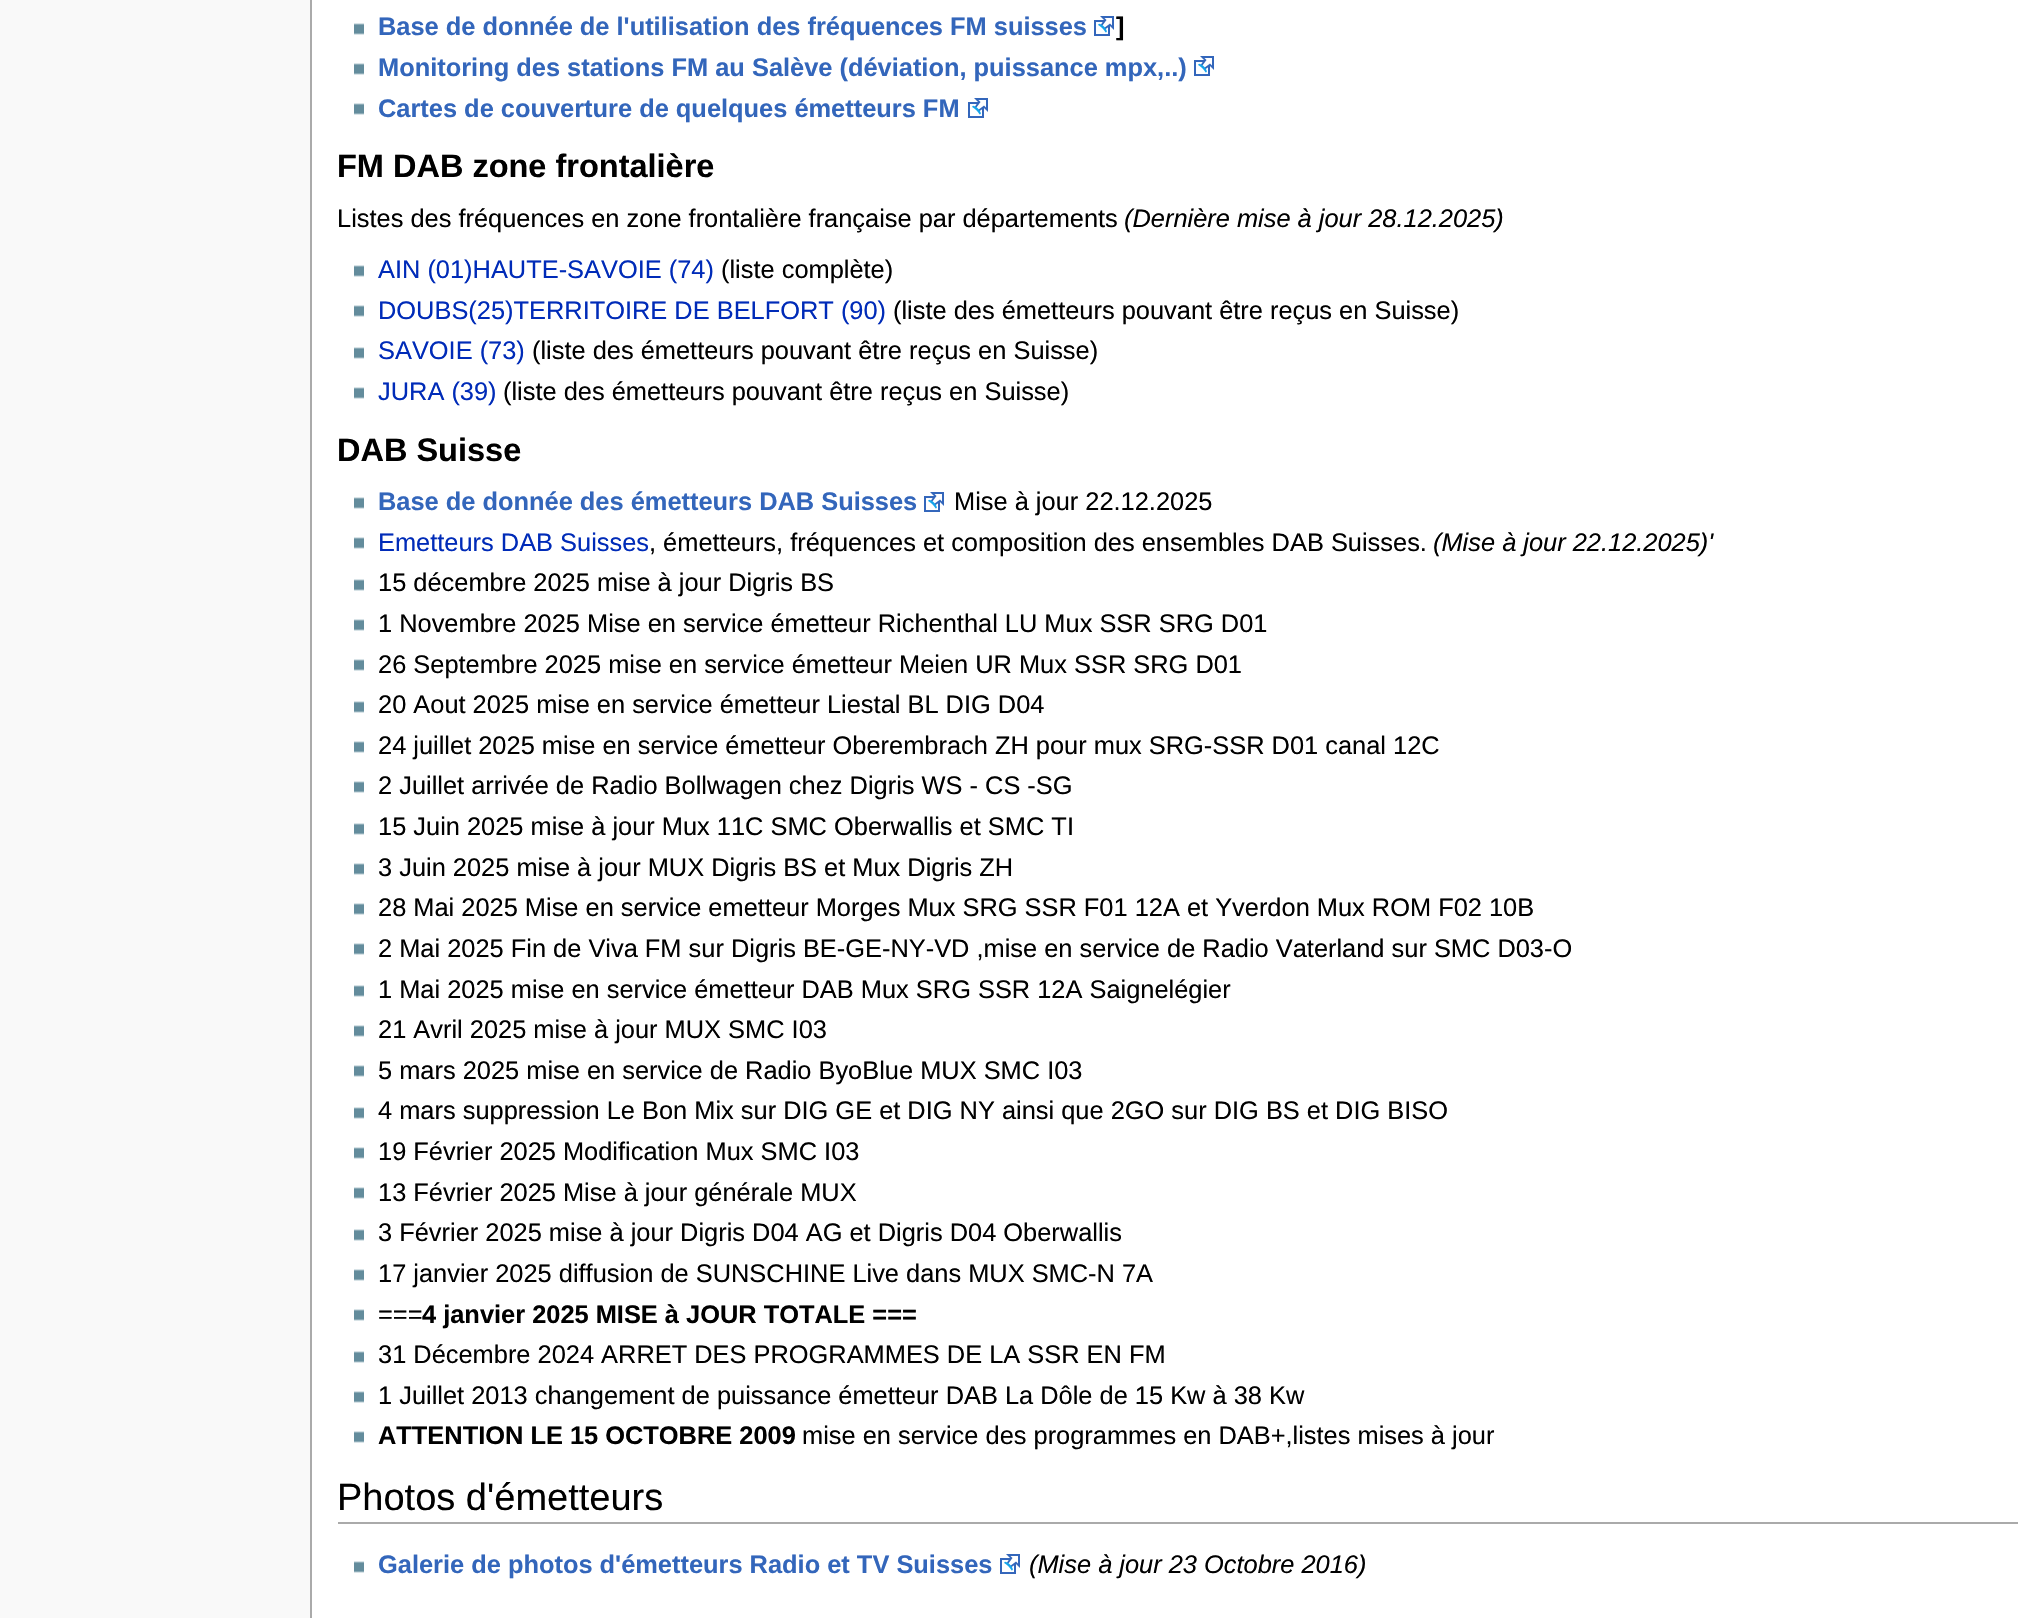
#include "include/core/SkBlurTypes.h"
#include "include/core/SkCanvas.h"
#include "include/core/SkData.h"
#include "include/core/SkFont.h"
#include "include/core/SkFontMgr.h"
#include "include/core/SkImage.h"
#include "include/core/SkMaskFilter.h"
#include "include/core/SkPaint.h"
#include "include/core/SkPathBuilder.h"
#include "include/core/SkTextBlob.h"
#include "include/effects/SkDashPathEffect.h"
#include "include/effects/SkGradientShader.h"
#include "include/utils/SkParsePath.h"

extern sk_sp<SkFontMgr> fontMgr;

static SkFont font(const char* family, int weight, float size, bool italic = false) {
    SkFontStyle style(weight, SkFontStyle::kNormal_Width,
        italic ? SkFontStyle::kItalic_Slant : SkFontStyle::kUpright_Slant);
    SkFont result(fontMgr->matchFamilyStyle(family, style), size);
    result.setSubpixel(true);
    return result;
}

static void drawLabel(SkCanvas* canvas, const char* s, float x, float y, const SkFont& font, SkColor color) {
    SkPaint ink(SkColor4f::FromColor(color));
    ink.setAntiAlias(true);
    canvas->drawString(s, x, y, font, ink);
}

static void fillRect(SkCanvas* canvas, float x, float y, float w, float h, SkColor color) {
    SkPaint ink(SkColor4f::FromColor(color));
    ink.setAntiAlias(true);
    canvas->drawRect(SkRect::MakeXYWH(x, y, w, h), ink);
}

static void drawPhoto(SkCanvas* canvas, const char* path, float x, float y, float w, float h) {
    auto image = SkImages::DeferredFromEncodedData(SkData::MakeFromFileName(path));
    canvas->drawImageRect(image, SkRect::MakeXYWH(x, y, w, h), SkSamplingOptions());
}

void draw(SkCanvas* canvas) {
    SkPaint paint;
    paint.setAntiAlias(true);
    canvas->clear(0xFFF9F9F9);
    fillRect(canvas, 312, 0, 1732, 1618, 0xFFFFFFFF);
    fillRect(canvas, 310, 0, 2, 1618, 0xFFAAAAAA);
    drawPhoto(canvas, "assets/img1.png", 354, 23, 10, 12);
    SkFont font1 = font("Liberation Sans", 700, 25.4f);
    drawLabel(canvas, "Base de donnée de l'utilisation des fréquences FM suisses", 378, 35, font1, 0xFF3366BB);
    drawPhoto(canvas, "assets/img2.png", 1094, 16, 20, 20);
    drawLabel(canvas, "]", 1116, 35, font1, 0xFF000000);
    drawPhoto(canvas, "assets/img1.png", 354, 63, 10, 12);
    drawLabel(canvas, "Monitoring des stations FM au Salève (déviation, puissance mpx,..)", 378, 76, font1, 0xFF3366BB);
    drawPhoto(canvas, "assets/img2.png", 1194, 56, 20, 20);
    drawPhoto(canvas, "assets/img1.png", 354, 103, 10, 12);
    drawLabel(canvas, "Cartes de couverture de quelques émetteurs FM", 378, 117, font1, 0xFF3366BB);
    drawPhoto(canvas, "assets/img2.png", 968, 98, 20, 20);
    SkFont font2 = font("Liberation Sans", 700, 32.5f);
    drawLabel(canvas, "FM DAB zone frontalière", 337, 177, font2, 0xFF000000);
    SkFont font3 = font("Liberation Sans", 400, 25.4f);
    drawLabel(canvas, "Listes des fréquences en zone frontalière française par départements", 337, 227, font3, 0xFF000000);
    SkFont font4 = font("Liberation Sans", 400, 25.4f, true);
    drawLabel(canvas, "(Dernière mise à jour 28.12.2025)", 1124, 227, font4, 0xFF000000);
    drawPhoto(canvas, "assets/img1.png", 354, 265, 10, 12);
    drawLabel(canvas, "AIN (01)HAUTE-SAVOIE (74)", 378, 278, font3, 0xFF002BB8);
    drawLabel(canvas, "(liste complète)", 721, 278, font3, 0xFF000000);
    drawPhoto(canvas, "assets/img1.png", 354, 305, 10, 12);
    drawLabel(canvas, "DOUBS(25)TERRITOIRE DE BELFORT (90)", 378, 319, font3, 0xFF002BB8);
    drawLabel(canvas, "(liste des émetteurs pouvant être reçus en Suisse)", 893, 319, font3, 0xFF000000);
    drawPhoto(canvas, "assets/img1.png", 354, 347, 10, 12);
    drawLabel(canvas, "SAVOIE (73)", 378, 359, font3, 0xFF002BB8);
    drawLabel(canvas, "(liste des émetteurs pouvant être reçus en Suisse)", 532, 359, font3, 0xFF000000);
    drawPhoto(canvas, "assets/img1.png", 354, 387, 10, 12);
    drawLabel(canvas, "JURA (39)", 378, 400, font3, 0xFF002BB8);
    drawLabel(canvas, "(liste des émetteurs pouvant être reçus en Suisse)", 503, 400, font3, 0xFF000000);
    drawLabel(canvas, "DAB Suisse", 337, 461, font2, 0xFF000000);
    drawPhoto(canvas, "assets/img1.png", 354, 497, 10, 12);
    drawLabel(canvas, "Base de donnée des émetteurs DAB Suisses", 378, 510, font1, 0xFF3366BB);
    drawPhoto(canvas, "assets/img2.png", 924, 492, 20, 20);
    drawLabel(canvas, "Mise à jour 22.12.2025", 954, 510, font3, 0xFF000000);
    drawPhoto(canvas, "assets/img1.png", 354, 537, 10, 12);
    drawLabel(canvas, "Emetteurs DAB Suisses", 378, 551, font3, 0xFF002BB8);
    drawLabel(canvas, ", émetteurs, fréquences et composition des ensembles DAB Suisses.", 649, 551, font3, 0xFF000000);
    drawLabel(canvas, "(Mise à jour 22.12.2025)'", 1433, 551, font4, 0xFF000000);
    drawPhoto(canvas, "assets/img1.png", 354, 579, 10, 12);
    drawLabel(canvas, "15 décembre 2025 mise à jour Digris BS", 378, 591, font3, 0xFF000000);
    drawPhoto(canvas, "assets/img1.png", 354, 619, 10, 12);
    drawLabel(canvas, "1 Novembre 2025 Mise en service émetteur Richenthal LU Mux SSR SRG D01", 378, 632, font3, 0xFF000000);
    drawPhoto(canvas, "assets/img1.png", 354, 659, 10, 12);
    drawLabel(canvas, "26 Septembre 2025 mise en service émetteur Meien UR Mux SSR SRG D01", 378, 673, font3, 0xFF000000);
    drawPhoto(canvas, "assets/img1.png", 354, 701, 10, 12);
    drawLabel(canvas, "20 Aout 2025 mise en service émetteur Liestal BL DIG D04", 378, 713, font3, 0xFF000000);
    drawPhoto(canvas, "assets/img1.png", 354, 741, 10, 12);
    drawLabel(canvas, "24 juillet 2025 mise en service émetteur Oberembrach ZH pour mux SRG-SSR D01 canal 12C", 378, 754, font3, 0xFF000000);
    drawPhoto(canvas, "assets/img1.png", 354, 781, 10, 12);
    drawLabel(canvas, "2 Juillet arrivée de Radio Bollwagen chez Digris WS - CS -SG", 378, 794, font3, 0xFF000000);
    drawPhoto(canvas, "assets/img1.png", 354, 823, 10, 12);
    drawLabel(canvas, "15 Juin 2025 mise à jour Mux 11C SMC Oberwallis et SMC TI", 378, 835, font3, 0xFF000000);
    drawPhoto(canvas, "assets/img1.png", 354, 863, 10, 12);
    drawLabel(canvas, "3 Juin 2025 mise à jour MUX Digris BS et Mux Digris ZH", 378, 876, font3, 0xFF000000);
    drawPhoto(canvas, "assets/img1.png", 354, 903, 10, 12);
    drawLabel(canvas, "28 Mai 2025 Mise en service emetteur Morges Mux SRG SSR F01 12A et Yverdon Mux ROM F02 10B", 378, 916, font3, 0xFF000000);
    drawPhoto(canvas, "assets/img1.png", 354, 943, 10, 12);
    drawLabel(canvas, "2 Mai 2025 Fin de Viva FM sur Digris BE-GE-NY-VD ,mise en service de Radio Vaterland sur SMC D03-O", 378, 957, font3, 0xFF000000);
    drawPhoto(canvas, "assets/img1.png", 354, 985, 10, 12);
    drawLabel(canvas, "1 Mai 2025 mise en service émetteur DAB Mux SRG SSR 12A Saignelégier", 378, 998, font3, 0xFF000000);
    drawPhoto(canvas, "assets/img1.png", 354, 1025, 10, 12);
    drawLabel(canvas, "21 Avril 2025 mise à jour MUX SMC I03", 378, 1038, font3, 0xFF000000);
    drawPhoto(canvas, "assets/img1.png", 354, 1065, 10, 12);
    drawLabel(canvas, "5 mars 2025 mise en service de Radio ByoBlue MUX SMC I03", 378, 1079, font3, 0xFF000000);
    drawPhoto(canvas, "assets/img1.png", 354, 1107, 10, 12);
    drawLabel(canvas, "4 mars suppression Le Bon Mix sur DIG GE et DIG NY ainsi que 2GO sur DIG BS et DIG BISO", 378, 1119, font3, 0xFF000000);
    drawPhoto(canvas, "assets/img1.png", 354, 1147, 10, 12);
    drawLabel(canvas, "19 Février 2025 Modification Mux SMC I03", 378, 1160, font3, 0xFF000000);
    drawPhoto(canvas, "assets/img1.png", 354, 1187, 10, 12);
    drawLabel(canvas, "13 Février 2025 Mise à jour générale MUX", 378, 1201, font3, 0xFF000000);
    drawPhoto(canvas, "assets/img1.png", 354, 1229, 10, 12);
    drawLabel(canvas, "3 Février 2025 mise à jour Digris D04 AG et Digris D04 Oberwallis", 378, 1241, font3, 0xFF000000);
    drawPhoto(canvas, "assets/img1.png", 354, 1269, 10, 12);
    drawLabel(canvas, "17 janvier 2025 diffusion de SUNSCHINE Live dans MUX SMC-N 7A", 378, 1282, font3, 0xFF000000);
    drawPhoto(canvas, "assets/img1.png", 354, 1309, 10, 12);
    drawLabel(canvas, "===", 378, 1323, font3, 0xFF000000);
    drawLabel(canvas, "4 janvier 2025 MISE à JOUR TOTALE ===", 422, 1323, font1, 0xFF000000);
    drawPhoto(canvas, "assets/img1.png", 354, 1351, 10, 12);
    drawLabel(canvas, "31 Décembre 2024 ARRET DES PROGRAMMES DE LA SSR EN FM", 378, 1363, font3, 0xFF000000);
    drawPhoto(canvas, "assets/img1.png", 354, 1391, 10, 12);
    drawLabel(canvas, "1 Juillet 2013 changement de puissance émetteur DAB La Dôle de 15 Kw à 38 Kw", 378, 1404, font3, 0xFF000000);
    drawPhoto(canvas, "assets/img1.png", 354, 1431, 10, 12);
    drawLabel(canvas, "ATTENTION LE 15 OCTOBRE 2009", 378, 1444, font1, 0xFF000000);
    drawLabel(canvas, "mise en service des programmes en DAB+,listes mises à jour", 802, 1444, font3, 0xFF000000);
    fillRect(canvas, 338, 1522, 1680, 2, 0xFFAAAAAA);
    SkFont font5 = font("Liberation Sans", 400, 38);
    drawLabel(canvas, "Photos d'émetteurs", 337, 1510, font5, 0xFF000000);
    drawPhoto(canvas, "assets/img1.png", 354, 1561, 10, 12);
    drawLabel(canvas, "Galerie de photos d'émetteurs Radio et TV Suisses", 378, 1573, font1, 0xFF3366BB);
    drawPhoto(canvas, "assets/img2.png", 1000, 1554, 20, 20);
    drawLabel(canvas, "(Mise à jour 23 Octobre 2016)", 1029, 1573, font4, 0xFF000000);
}
